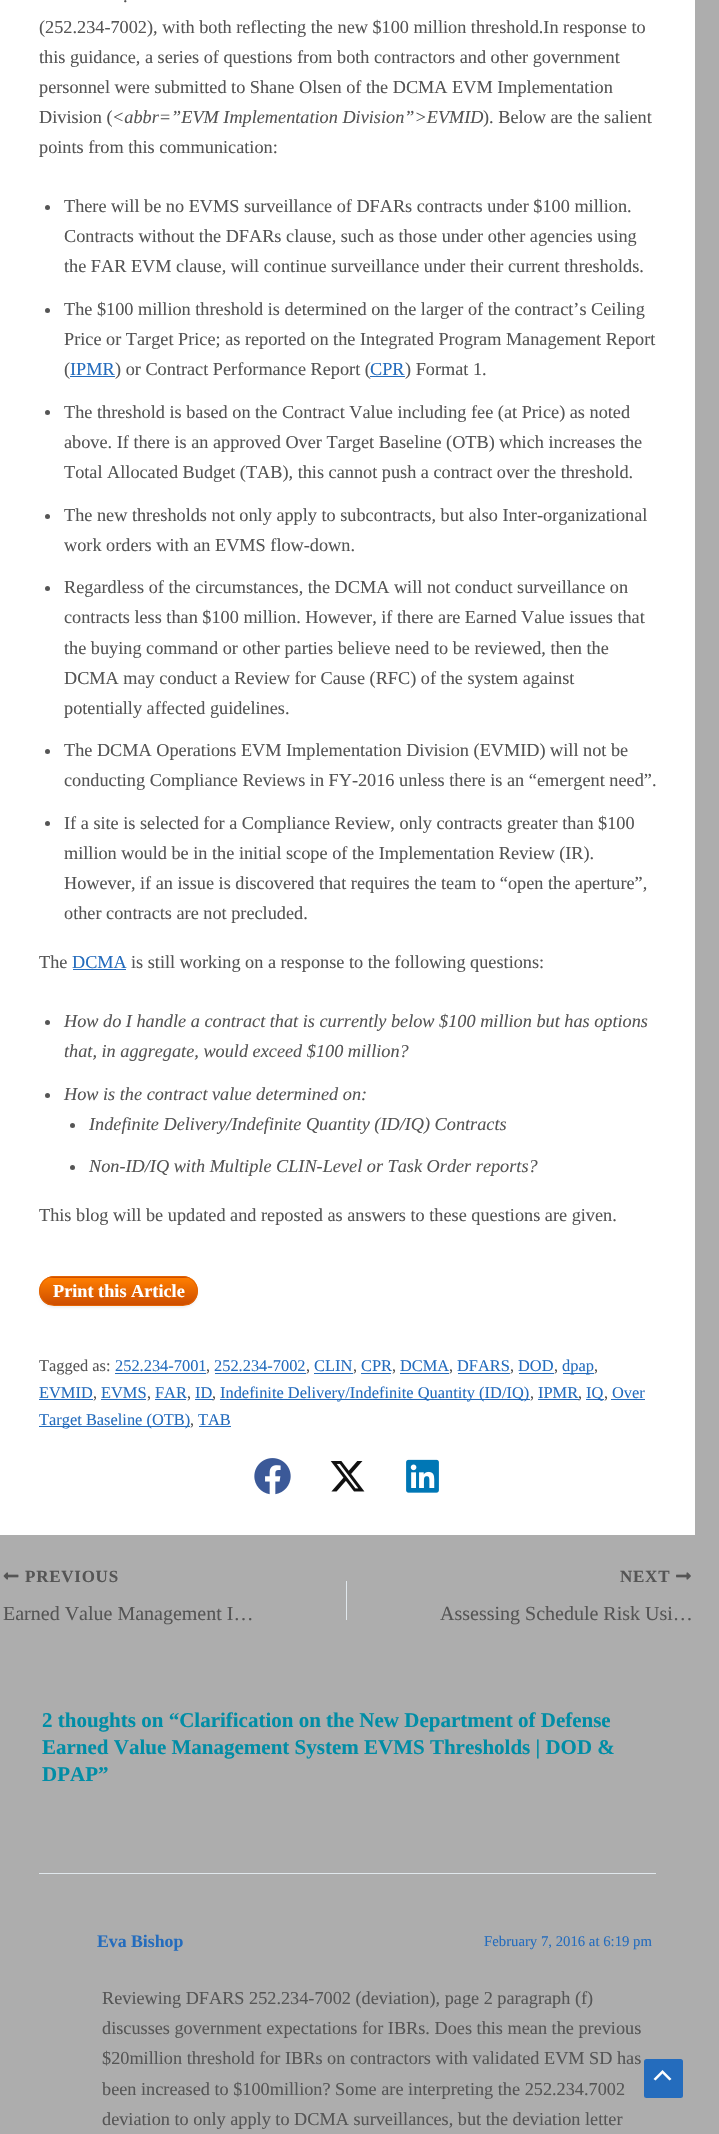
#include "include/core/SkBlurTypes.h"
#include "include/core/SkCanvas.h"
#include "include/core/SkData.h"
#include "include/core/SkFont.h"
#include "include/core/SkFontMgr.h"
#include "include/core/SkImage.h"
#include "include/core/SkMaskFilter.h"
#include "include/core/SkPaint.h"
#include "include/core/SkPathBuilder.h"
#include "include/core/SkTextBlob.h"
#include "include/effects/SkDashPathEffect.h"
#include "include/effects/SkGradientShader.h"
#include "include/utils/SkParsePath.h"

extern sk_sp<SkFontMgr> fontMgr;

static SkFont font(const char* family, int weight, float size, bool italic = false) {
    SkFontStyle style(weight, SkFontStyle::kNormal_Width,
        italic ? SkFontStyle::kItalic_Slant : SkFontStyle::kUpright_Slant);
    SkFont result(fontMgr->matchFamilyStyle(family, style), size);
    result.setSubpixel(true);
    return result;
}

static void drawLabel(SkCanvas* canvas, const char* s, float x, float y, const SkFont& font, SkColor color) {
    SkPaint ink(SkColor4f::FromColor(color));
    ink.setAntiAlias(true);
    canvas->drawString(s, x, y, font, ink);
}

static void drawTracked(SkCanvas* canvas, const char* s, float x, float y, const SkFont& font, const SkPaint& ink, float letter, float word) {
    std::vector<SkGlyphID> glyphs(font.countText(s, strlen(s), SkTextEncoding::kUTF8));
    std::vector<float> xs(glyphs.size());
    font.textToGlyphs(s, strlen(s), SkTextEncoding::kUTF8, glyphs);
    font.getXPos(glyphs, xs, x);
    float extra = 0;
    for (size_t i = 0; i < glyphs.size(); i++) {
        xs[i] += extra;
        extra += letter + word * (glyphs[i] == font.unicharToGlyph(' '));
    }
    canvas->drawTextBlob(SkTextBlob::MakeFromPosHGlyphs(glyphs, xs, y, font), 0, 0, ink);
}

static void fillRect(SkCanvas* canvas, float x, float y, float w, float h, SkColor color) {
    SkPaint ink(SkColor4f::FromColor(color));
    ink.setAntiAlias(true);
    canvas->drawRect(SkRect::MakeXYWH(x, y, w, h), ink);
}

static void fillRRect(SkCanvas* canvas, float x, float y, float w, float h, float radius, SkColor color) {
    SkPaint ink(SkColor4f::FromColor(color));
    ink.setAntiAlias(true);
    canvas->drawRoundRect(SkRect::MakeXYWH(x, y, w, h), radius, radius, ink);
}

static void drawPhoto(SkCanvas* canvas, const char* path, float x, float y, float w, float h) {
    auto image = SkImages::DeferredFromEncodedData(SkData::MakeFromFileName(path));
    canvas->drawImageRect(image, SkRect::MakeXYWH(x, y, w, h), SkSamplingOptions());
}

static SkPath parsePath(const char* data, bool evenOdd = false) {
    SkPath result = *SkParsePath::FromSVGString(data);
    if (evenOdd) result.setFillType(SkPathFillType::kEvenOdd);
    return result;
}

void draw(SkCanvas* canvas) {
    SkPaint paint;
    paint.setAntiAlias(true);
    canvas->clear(0xFFADADAD);
    fillRect(canvas, 0, 0, 695, 1535, 0xFFFFFFFF);
    SkFont font1 = font("Liberation Serif", 400, 18.25f);
    drawLabel(canvas, ".", 123, 2, font1, 0xFF555555);
    drawLabel(canvas, "(252.234-7002), with both reflecting the new $100 million threshold.In response to", 39, 33, font1, 0xFF555555);
    drawLabel(canvas, "this guidance, a series of questions from both contractors and other government", 39, 63, font1, 0xFF555555);
    drawLabel(canvas, "personnel were submitted to Shane Olsen of the DCMA EVM Implementation", 39, 93, font1, 0xFF555555);
    drawLabel(canvas, "Division (", 39, 123, font1, 0xFF555555);
    SkFont font2 = font("Liberation Serif", 400, 18.25f, true);
    drawLabel(canvas, "<abbr=”EVM Implementation Division”>EVMID", 112, 123, font2, 0xFF555555);
    drawLabel(canvas, "). Below are the salient", 483, 123, font1, 0xFF555555);
    drawLabel(canvas, "points from this communication:", 39, 153, font1, 0xFF555555);
    paint.setColor(0xFF555555);
    canvas->drawCircle(47.5f, 207.5f, 2.5f, paint);
    drawLabel(canvas, "There will be no EVMS surveillance of DFARs contracts under $100 million.", 64, 212, font1, 0xFF555555);
    drawLabel(canvas, "Contracts without the DFARs clause, such as those under other agencies using", 64, 242, font1, 0xFF555555);
    drawLabel(canvas, "the FAR EVM clause, will continue surveillance under their current thresholds.", 64, 272, font1, 0xFF555555);
    canvas->drawCircle(47.5f, 310.5f, 2.5f, paint);
    drawLabel(canvas, "The $100 million threshold is determined on the larger of the contract’s Ceiling", 64, 315, font1, 0xFF555555);
    drawLabel(canvas, "Price or Target Price; as reported on the Integrated Program Management Report", 64, 345, font1, 0xFF555555);
    drawLabel(canvas, "(", 64, 375, font1, 0xFF555555);
    drawLabel(canvas, "IPMR", 70, 375, font1, 0xFF246CBD);
    fillRect(canvas, 70, 376, 45, 1, 0xFF246CBD);
    drawLabel(canvas, ") or Contract Performance Report (", 115, 375, font1, 0xFF555555);
    drawLabel(canvas, "CPR", 370, 375, font1, 0xFF246CBD);
    fillRect(canvas, 370, 376, 35, 1, 0xFF246CBD);
    drawLabel(canvas, ") Format 1.", 405, 375, font1, 0xFF555555);
    canvas->drawCircle(47.5f, 412.5f, 2.5f, paint);
    drawLabel(canvas, "The threshold is based on the Contract Value including fee (at Price) as noted", 64, 418, font1, 0xFF555555);
    drawLabel(canvas, "above. If there is an approved Over Target Baseline (OTB) which increases the", 64, 448, font1, 0xFF555555);
    drawLabel(canvas, "Total Allocated Budget (TAB), this cannot push a contract over the threshold.", 64, 478, font1, 0xFF555555);
    canvas->drawCircle(47.5f, 516.5f, 2.5f, paint);
    drawLabel(canvas, "The new thresholds not only apply to subcontracts, but also Inter-organizational", 64, 521, font1, 0xFF555555);
    drawLabel(canvas, "work orders with an EVMS flow-down.", 64, 551, font1, 0xFF555555);
    canvas->drawCircle(47.5f, 588.5f, 2.5f, paint);
    drawLabel(canvas, "Regardless of the circumstances, the DCMA will not conduct surveillance on", 64, 593, font1, 0xFF555555);
    drawLabel(canvas, "contracts less than $100 million. However, if there are Earned Value issues that", 64, 623, font1, 0xFF555555);
    drawLabel(canvas, "the buying command or other parties believe need to be reviewed, then the", 64, 654, font1, 0xFF555555);
    drawLabel(canvas, "DCMA may conduct a Review for Cause (RFC) of the system against", 64, 684, font1, 0xFF555555);
    drawLabel(canvas, "potentially affected guidelines.", 64, 714, font1, 0xFF555555);
    canvas->drawCircle(47.5f, 751.5f, 2.5f, paint);
    drawLabel(canvas, "The DCMA Operations EVM Implementation Division (EVMID) will not be", 64, 756, font1, 0xFF555555);
    drawLabel(canvas, "conducting Compliance Reviews in FY-2016 unless there is an “emergent need”.", 64, 786, font1, 0xFF555555);
    canvas->drawCircle(47.5f, 823.5f, 2.5f, paint);
    drawLabel(canvas, "If a site is selected for a Compliance Review, only contracts greater than $100", 64, 829, font1, 0xFF555555);
    drawLabel(canvas, "million would be in the initial scope of the Implementation Review (IR).", 64, 859, font1, 0xFF555555);
    drawLabel(canvas, "However, if an issue is discovered that requires the team to “open the aperture”,", 64, 889, font1, 0xFF555555);
    drawLabel(canvas, "other contracts are not precluded.", 64, 919, font1, 0xFF555555);
    drawLabel(canvas, "The", 39, 968, font1, 0xFF555555);
    drawLabel(canvas, "DCMA", 72, 968, font1, 0xFF246CBD);
    fillRect(canvas, 73, 969, 53, 1, 0xFF246CBD);
    drawLabel(canvas, "is still working on a response to the following questions:", 131, 968, font1, 0xFF555555);
    canvas->drawCircle(47.5f, 1022.5f, 2.5f, paint);
    drawLabel(canvas, "How do I handle a contract that is currently below $100 million but has options", 64, 1027, font2, 0xFF555555);
    drawLabel(canvas, "that, in aggregate, would exceed $100 million?", 64, 1057, font2, 0xFF555555);
    canvas->drawCircle(47.5f, 1095.5f, 2.5f, paint);
    drawLabel(canvas, "How is the contract value determined on:", 64, 1100, font2, 0xFF555555);
    canvas->drawCircle(72.5f, 1125.5f, 2.5f, paint);
    drawLabel(canvas, "Indefinite Delivery/Indefinite Quantity (ID/IQ) Contracts", 89, 1130, font2, 0xFF555555);
    canvas->drawCircle(72.5f, 1167.5f, 2.5f, paint);
    drawLabel(canvas, "Non-ID/IQ with Multiple CLIN-Level or Task Order reports?", 89, 1172, font2, 0xFF555555);
    drawLabel(canvas, "This blog will be updated and reposted as answers to these questions are given.", 39, 1221, font1, 0xFF555555);
    paint.setColor(0x0D000000);
    paint.setMaskFilter(SkMaskFilter::MakeBlur(kNormal_SkBlurStyle, 1));
    canvas->drawRoundRect(SkRect::MakeXYWH(39, 1278, 159, 30), 15, 15, paint);
    paint.setMaskFilter(nullptr);
    canvas->save();
    canvas->clipPath(parsePath("M54 1276H183C191.5 1276 198 1282.5 198 1291C198 1299.5 191.5 1306 183 1306H54C45.5 1306 39 1299.5 39 1291C39 1282.5 45.5 1276 54 1276Z"), true);
    {
        const SkColor colors[] = {0xFFFF7E00, 0xFFCD4D00};
        const float stops[] = {0, 1};
        const SkPoint ends[] = {{40, 1250}, {40, 1278}};
        paint.setShader(SkGradientShader::MakeLinear(ends, colors, stops, 2, SkTileMode::kClamp));
        paint.setAlpha(255);
    }
    canvas->drawRect(SkRect::MakeXYWH(39, 1276, 159, 2), paint);
    {
        const SkColor colors[] = {0xFFFF7E00, 0xFFCD4D00};
        const float stops[] = {0, 1};
        const SkPoint ends[] = {{40, 1278}, {40, 1305}};
        paint.setShader(SkGradientShader::MakeLinear(ends, colors, stops, 2, SkTileMode::kClamp));
        paint.setAlpha(255);
    }
    canvas->drawRect(SkRect::MakeXYWH(39, 1278, 159, 27), paint);
    canvas->restore();
    paint.setStroke(true);
    paint.setStrokeWidth(1);
    paint.setShader(nullptr);
    paint.setColor(0xFFE46300);
    canvas->drawRoundRect(SkRect::MakeXYWH(39.5f, 1276.5f, 158, 29), 14.5f, 14.5f, paint);
    SkFont font3 = font("Liberation Serif", 700, 18.25f);
    drawLabel(canvas, "Print this Article", 53, 1297, font3, 0xFFFFFFFF);
    SkFont font4 = font("Liberation Serif", 400, 16.4f);
    drawLabel(canvas, "Tagged as:", 39, 1371, font4, 0xFF555555);
    drawLabel(canvas, "252.234-7001", 115, 1371, font4, 0xFF246CBD);
    fillRect(canvas, 115, 1373, 91, 1, 0xFF246CBD);
    drawLabel(canvas, ",", 206, 1371, font4, 0xFF555555);
    drawLabel(canvas, "252.234-7002", 214, 1371, font4, 0xFF246CBD);
    fillRect(canvas, 215, 1373, 91, 1, 0xFF246CBD);
    drawLabel(canvas, ",", 306, 1371, font4, 0xFF555555);
    drawLabel(canvas, "CLIN", 314, 1371, font4, 0xFF246CBD);
    fillRect(canvas, 314, 1373, 39, 1, 0xFF246CBD);
    drawLabel(canvas, ",", 353, 1371, font4, 0xFF555555);
    drawLabel(canvas, "CPR", 361, 1371, font4, 0xFF246CBD);
    fillRect(canvas, 361, 1373, 30, 1, 0xFF246CBD);
    drawLabel(canvas, ",", 392, 1371, font4, 0xFF555555);
    drawLabel(canvas, "DCMA", 400, 1371, font4, 0xFF246CBD);
    fillRect(canvas, 400, 1373, 49, 1, 0xFF246CBD);
    drawLabel(canvas, ",", 449, 1371, font4, 0xFF555555);
    drawLabel(canvas, "DFARS", 457, 1371, font4, 0xFF246CBD);
    fillRect(canvas, 458, 1373, 52, 1, 0xFF246CBD);
    drawLabel(canvas, ",", 510, 1371, font4, 0xFF555555);
    drawLabel(canvas, "DOD", 518, 1371, font4, 0xFF246CBD);
    fillRect(canvas, 519, 1373, 35, 1, 0xFF246CBD);
    drawLabel(canvas, ",", 554, 1371, font4, 0xFF555555);
    fillRect(canvas, 563, 1373, 31, 1, 0xFF246CBD);
    drawLabel(canvas, "dpap", 562, 1371, font4, 0xFF246CBD);
    drawLabel(canvas, ",", 594, 1371, font4, 0xFF555555);
    drawLabel(canvas, "EVMID", 39, 1398, font4, 0xFF246CBD);
    fillRect(canvas, 39, 1399, 54, 1, 0xFF246CBD);
    drawLabel(canvas, ",", 93, 1398, font4, 0xFF555555);
    drawLabel(canvas, "EVMS", 101, 1398, font4, 0xFF246CBD);
    fillRect(canvas, 101, 1399, 45, 1, 0xFF246CBD);
    drawLabel(canvas, ",", 147, 1398, font4, 0xFF555555);
    drawLabel(canvas, "FAR", 155, 1398, font4, 0xFF246CBD);
    fillRect(canvas, 155, 1399, 31, 1, 0xFF246CBD);
    drawLabel(canvas, ",", 187, 1398, font4, 0xFF555555);
    drawLabel(canvas, "ID", 195, 1398, font4, 0xFF246CBD);
    fillRect(canvas, 195, 1399, 18, 1, 0xFF246CBD);
    drawLabel(canvas, ",", 212, 1398, font4, 0xFF555555);
    fillRect(canvas, 220, 1399, 310, 1, 0xFF246CBD);
    drawLabel(canvas, "Indefinite Delivery/Indefinite Quantity (ID/IQ)", 220, 1398, font4, 0xFF246CBD);
    drawLabel(canvas, ",", 530, 1398, font4, 0xFF555555);
    drawLabel(canvas, "IPMR", 538, 1398, font4, 0xFF246CBD);
    fillRect(canvas, 538, 1399, 41, 1, 0xFF246CBD);
    drawLabel(canvas, ",", 578, 1398, font4, 0xFF555555);
    fillRect(canvas, 586, 1399, 18, 1, 0xFF246CBD);
    drawLabel(canvas, "IQ", 586, 1398, font4, 0xFF246CBD);
    drawLabel(canvas, ",", 604, 1398, font4, 0xFF555555);
    drawLabel(canvas, "Over", 612, 1398, font4, 0xFF246CBD);
    fillRect(canvas, 611, 1399, 34, 1, 0xFF246CBD);
    fillRect(canvas, 39, 1426, 151, 1, 0xFF246CBD);
    drawLabel(canvas, "Target Baseline (OTB)", 39, 1425, font4, 0xFF246CBD);
    drawLabel(canvas, ",", 190, 1425, font4, 0xFF555555);
    drawLabel(canvas, "TAB", 198, 1425, font4, 0xFF246CBD);
    fillRect(canvas, 199, 1426, 32, 1, 0xFF246CBD);
    drawPhoto(canvas, "assets/img1.png", 254, 1458, 37, 37);
    drawPhoto(canvas, "assets/img2.png", 330, 1461, 35, 31);
    drawPhoto(canvas, "assets/img3.png", 406, 1459, 33, 34);
    drawPhoto(canvas, "assets/img4.png", 3, 1572, 16, 8);
    SkFont font5 = font("Liberation Serif", 700, 17);
    paint.setStroke(false);
    paint.setColor(0xFF555555);
    drawTracked(canvas, "PREVIOUS", 25, 1582, font5, paint, 0.75f, 0);
    SkFont font6 = font("Liberation Serif", 400, 20);
    drawLabel(canvas, "Earned Value Management I…", 3, 1620, font6, 0xFF555555);
    fillRect(canvas, 346, 1581, 1, 39, 0xFFE1E8ED);
    drawTracked(canvas, "NEXT", 620, 1582, font5, paint, 0.75f, 0);
    drawPhoto(canvas, "assets/img5.png", 676, 1572, 15, 8);
    drawLabel(canvas, "Assessing Schedule Risk Usi…", 440, 1620, font6, 0xFF555555);
    SkFont font7 = font("Liberation Serif", 700, 21);
    drawLabel(canvas, "2 thoughts on “Clarification on the New Department of Defense", 42, 1727, font7, 0xFF008DA6);
    drawLabel(canvas, "Earned Value Management System EVMS Thresholds | DOD &", 42, 1754, font7, 0xFF008DA6);
    drawLabel(canvas, "DPAP”", 42, 1781, font7, 0xFF008DA6);
    fillRect(canvas, 39, 1873, 617, 1, 0xFFE1E8ED);
    SkFont font8 = font("Liberation Serif", 700, 17.75f);
    drawLabel(canvas, "Eva Bishop", 97, 1947, font8, 0xFF246CBD);
    SkFont font9 = font("Liberation Serif", 400, 14.75f);
    drawLabel(canvas, "February 7, 2016 at 6:19 pm", 484, 1946, font9, 0xFF246CBD);
    drawLabel(canvas, "Reviewing DFARS 252.234-7002 (deviation), page 2 paragraph (f)", 102, 2004, font1, 0xFF555555);
    drawLabel(canvas, "discusses government expectations for IBRs. Does this mean the previous", 102, 2034, font1, 0xFF555555);
    drawLabel(canvas, "$20million threshold for IBRs on contractors with validated EVM SD has", 102, 2064, font1, 0xFF555555);
    drawLabel(canvas, "been increased to $100million? Some are interpreting the 252.234.7002", 102, 2095, font1, 0xFF555555);
    drawLabel(canvas, "deviation to only apply to DCMA surveillances, but the deviation letter", 102, 2125, font1, 0xFF555555);
    fillRRect(canvas, 644, 2059, 39, 39, 2.5f, 0xFF246CBD);
    paint.setColor(0xFFFFFFFF);
    canvas->drawPath(parsePath("M671.5 2079L662.5 2070L653.5 2079L655.5 2080.5L662.5 2073.5L669.5 2080.5Z"), paint);
}
